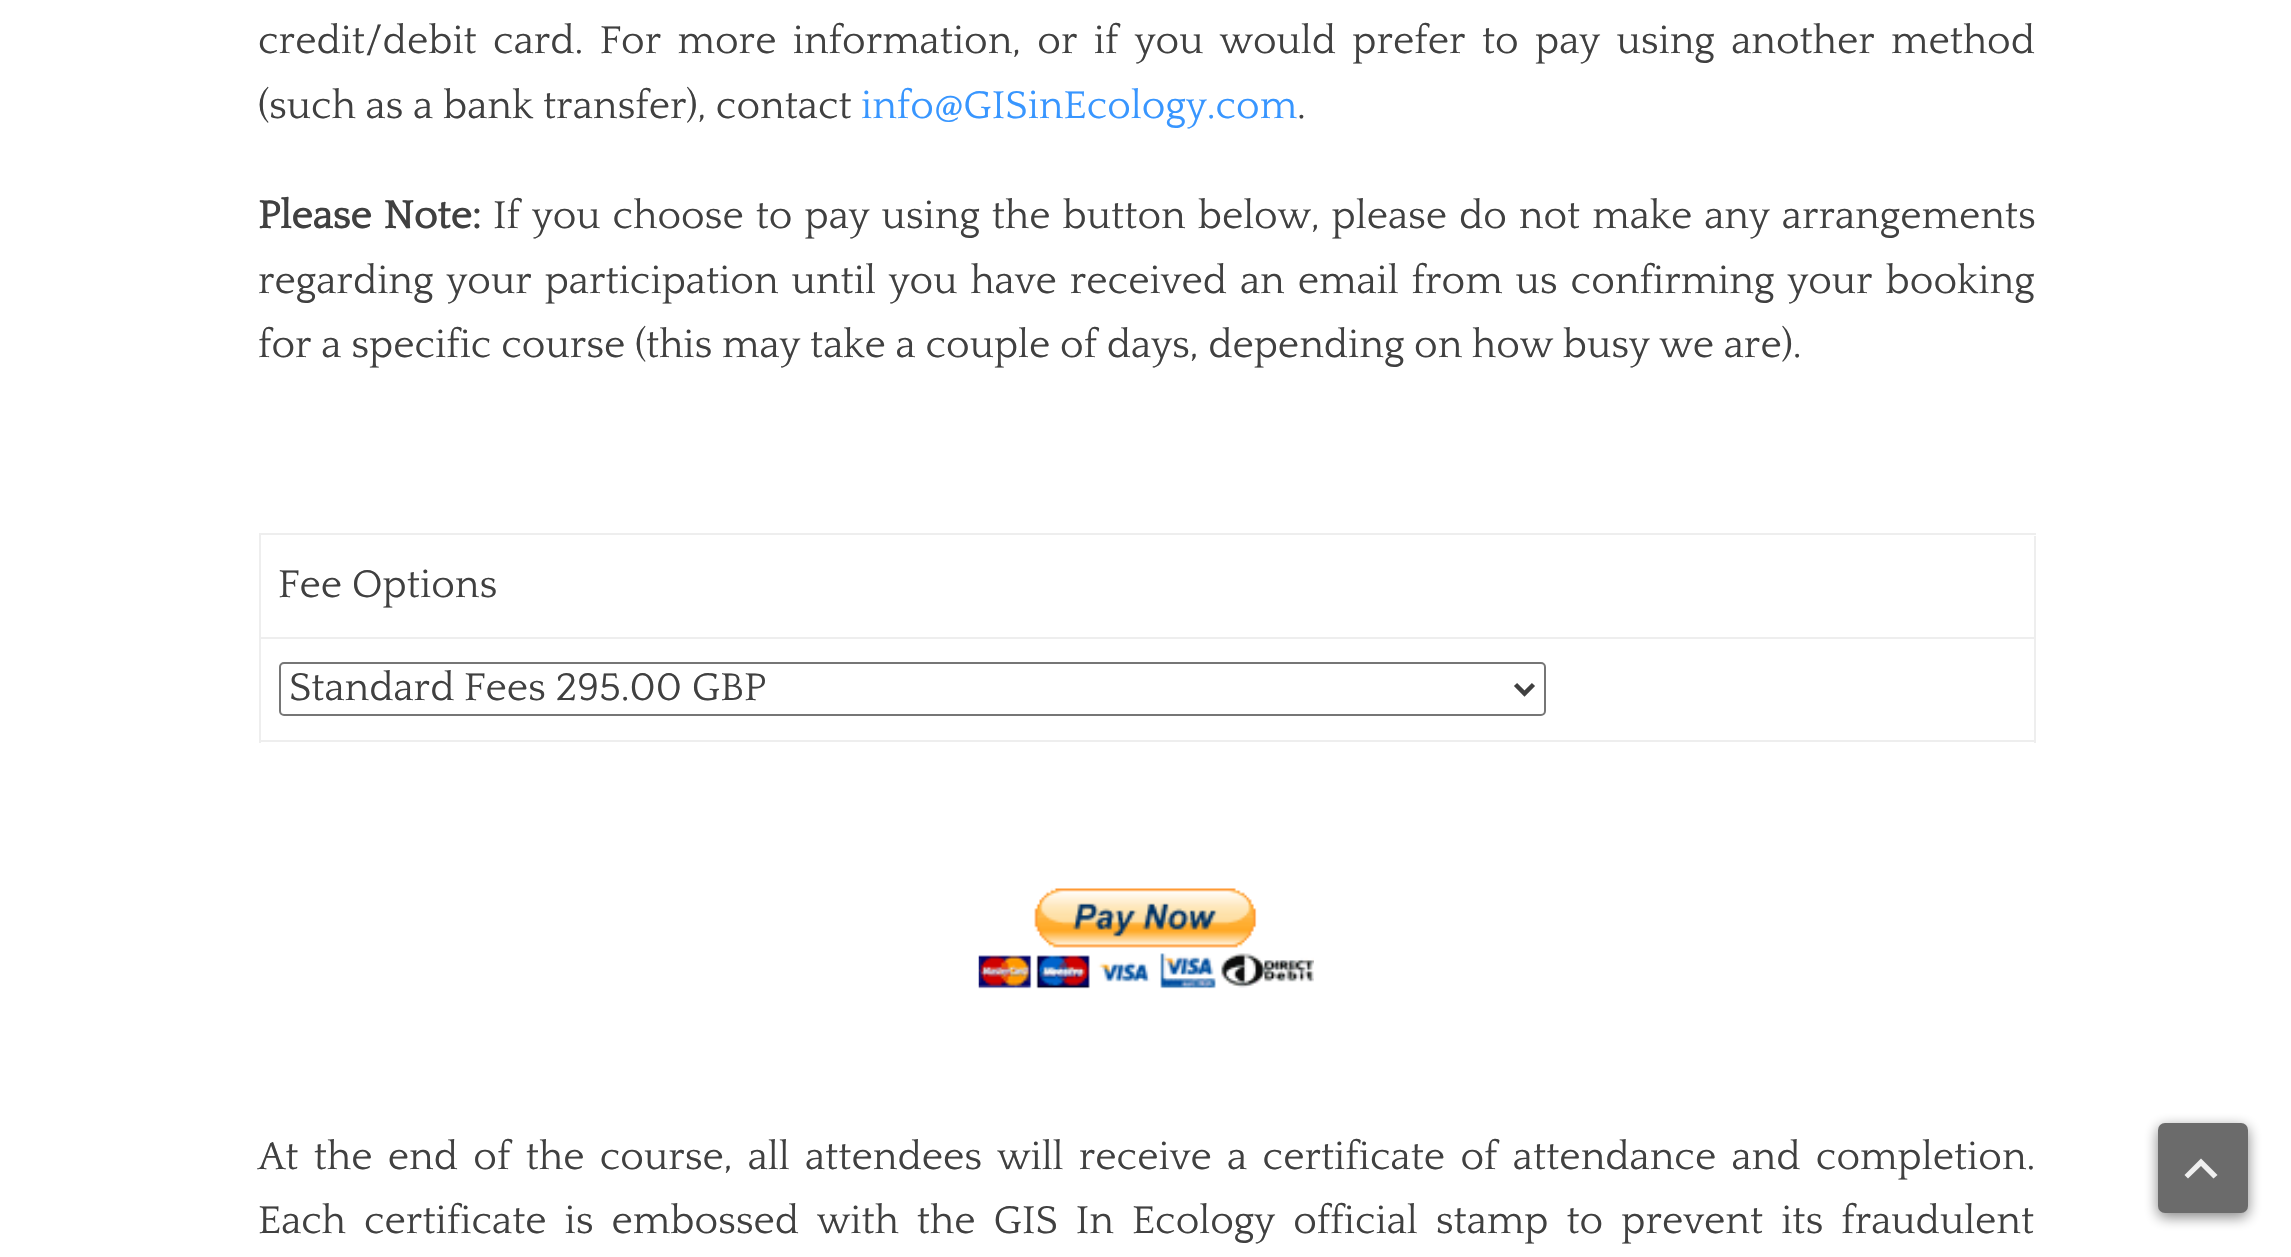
#include "include/core/SkBlurTypes.h"
#include "include/core/SkCanvas.h"
#include "include/core/SkData.h"
#include "include/core/SkFont.h"
#include "include/core/SkFontMgr.h"
#include "include/core/SkImage.h"
#include "include/core/SkMaskFilter.h"
#include "include/core/SkPaint.h"
#include "include/core/SkPathBuilder.h"
#include "include/core/SkTextBlob.h"
#include "include/effects/SkDashPathEffect.h"
#include "include/effects/SkGradientShader.h"
#include "include/utils/SkParsePath.h"

extern sk_sp<SkFontMgr> fontMgr;

static SkFont font(const char* family, int weight, float size, bool italic = false) {
    SkFontStyle style(weight, SkFontStyle::kNormal_Width,
        italic ? SkFontStyle::kItalic_Slant : SkFontStyle::kUpright_Slant);
    SkFont result(fontMgr->matchFamilyStyle(family, style), size);
    result.setSubpixel(true);
    return result;
}

static void drawLabel(SkCanvas* canvas, const char* s, float x, float y, const SkFont& font, SkColor color) {
    SkPaint ink(SkColor4f::FromColor(color));
    ink.setAntiAlias(true);
    canvas->drawString(s, x, y, font, ink);
}

static void drawTracked(SkCanvas* canvas, const char* s, float x, float y, const SkFont& font, const SkPaint& ink, float letter, float word) {
    std::vector<SkGlyphID> glyphs(font.countText(s, strlen(s), SkTextEncoding::kUTF8));
    std::vector<float> xs(glyphs.size());
    font.textToGlyphs(s, strlen(s), SkTextEncoding::kUTF8, glyphs);
    font.getXPos(glyphs, xs, x);
    float extra = 0;
    for (size_t i = 0; i < glyphs.size(); i++) {
        xs[i] += extra;
        extra += letter + word * (glyphs[i] == font.unicharToGlyph(' '));
    }
    canvas->drawTextBlob(SkTextBlob::MakeFromPosHGlyphs(glyphs, xs, y, font), 0, 0, ink);
}

static void fillRect(SkCanvas* canvas, float x, float y, float w, float h, SkColor color) {
    SkPaint ink(SkColor4f::FromColor(color));
    ink.setAntiAlias(true);
    canvas->drawRect(SkRect::MakeXYWH(x, y, w, h), ink);
}

static void fillRRect(SkCanvas* canvas, float x, float y, float w, float h, float radius, SkColor color) {
    SkPaint ink(SkColor4f::FromColor(color));
    ink.setAntiAlias(true);
    canvas->drawRoundRect(SkRect::MakeXYWH(x, y, w, h), radius, radius, ink);
}

static void drawPhoto(SkCanvas* canvas, const char* path, float x, float y, float w, float h) {
    auto image = SkImages::DeferredFromEncodedData(SkData::MakeFromFileName(path));
    canvas->drawImageRect(image, SkRect::MakeXYWH(x, y, w, h), SkSamplingOptions());
}

static SkPath parsePath(const char* data, bool evenOdd = false) {
    SkPath result = *SkParsePath::FromSVGString(data);
    if (evenOdd) result.setFillType(SkPathFillType::kEvenOdd);
    return result;
}

void draw(SkCanvas* canvas) {
    SkPaint paint;
    paint.setAntiAlias(true);
    canvas->clear(0xFFFFFFFF);
    SkFont font1 = font("Quattrocento", 400, 40.5f);
    paint.setColor(0xFF404040);
    drawTracked(canvas, "credit/debit card. For more information, or if you would prefer to pay using another method", 258, 53, font1, paint, 0, 6.6f);
    drawLabel(canvas, "(such as a bank transfer), contact", 258, 118, font1, 0xFF404040);
    drawLabel(canvas, "info@GISinEcology.com", 861, 118, font1, 0xFF3896FF);
    drawLabel(canvas, ".", 1297, 118, font1, 0xFF404040);
    SkFont font2 = font("Quattrocento", 700, 40.5f);
    drawTracked(canvas, "Please Note:", 258, 228, font2, paint, 0, 2.25f);
    drawTracked(canvas, "If you choose to pay using the button below, please do not make any arrangements", 493, 228, font1, paint, 0, 2.25f);
    drawTracked(canvas, "regarding your participation until you have received an email from us confirming your booking", 258, 293, font1, paint, 0, 3.25f);
    drawLabel(canvas, "for a specific course (this may take a couple of days, depending on how busy we are).", 258, 357, font1, 0xFF404040);
    fillRect(canvas, 259, 533, 1777, 2, 0xFFEEEEEE);
    fillRect(canvas, 259, 533, 2, 210, 0xFFEEEEEE);
    fillRect(canvas, 2034, 536, 2, 207, 0xFFEEEEEE);
    fillRect(canvas, 261, 637, 1775, 2, 0xFFEEEEEE);
    drawLabel(canvas, "Fee Options", 278, 597, font1, 0xFF404040);
    fillRect(canvas, 261, 740, 1775, 2, 0xFFEEEEEE);
    paint.setStroke(true);
    paint.setStrokeWidth(2);
    paint.setColor(0xFF767676);
    canvas->drawRoundRect(SkRect::MakeXYWH(280, 663, 1265, 52), 4, 4, paint);
    paint.setStrokeWidth(4.5f);
    paint.setColor(0xFF404040);
    canvas->drawPath(parsePath("M1515.5 684.5L1524.5 693.5L1533.5 684.5"), paint);
    drawLabel(canvas, "Standard Fees 295.00 GBP", 289, 700, font1, 0xFF404040);
    drawPhoto(canvas, "assets/img1.png", 978, 888, 336, 101);
    paint.setStroke(false);
    drawTracked(canvas, "At the end of the course, all attendees will receive a certificate of attendance and completion.", 258, 1169, font1, paint, 0, 5.6f);
    drawTracked(canvas, "Each certificate is embossed with the GIS In Ecology official stamp to prevent its fraudulent", 258, 1233, font1, paint, 0, 8.25f);
    paint.setColor(0x80080808);
    paint.setMaskFilter(SkMaskFilter::MakeBlur(kNormal_SkBlurStyle, 7));
    canvas->drawRoundRect(SkRect::MakeXYWH(2158, 1127, 90, 90), 7, 7, paint);
    paint.setMaskFilter(nullptr);
    fillRRect(canvas, 2158, 1123, 90, 90, 7, 0xFF6B6B6B);
    paint.setColor(0xFFEFEFEF);
    canvas->drawPath(parsePath("M2213.5 1178.5L2201 1166L2188 1178.5L2184.5 1175L2201 1158.5L2217.5 1175Z"), paint);
}
